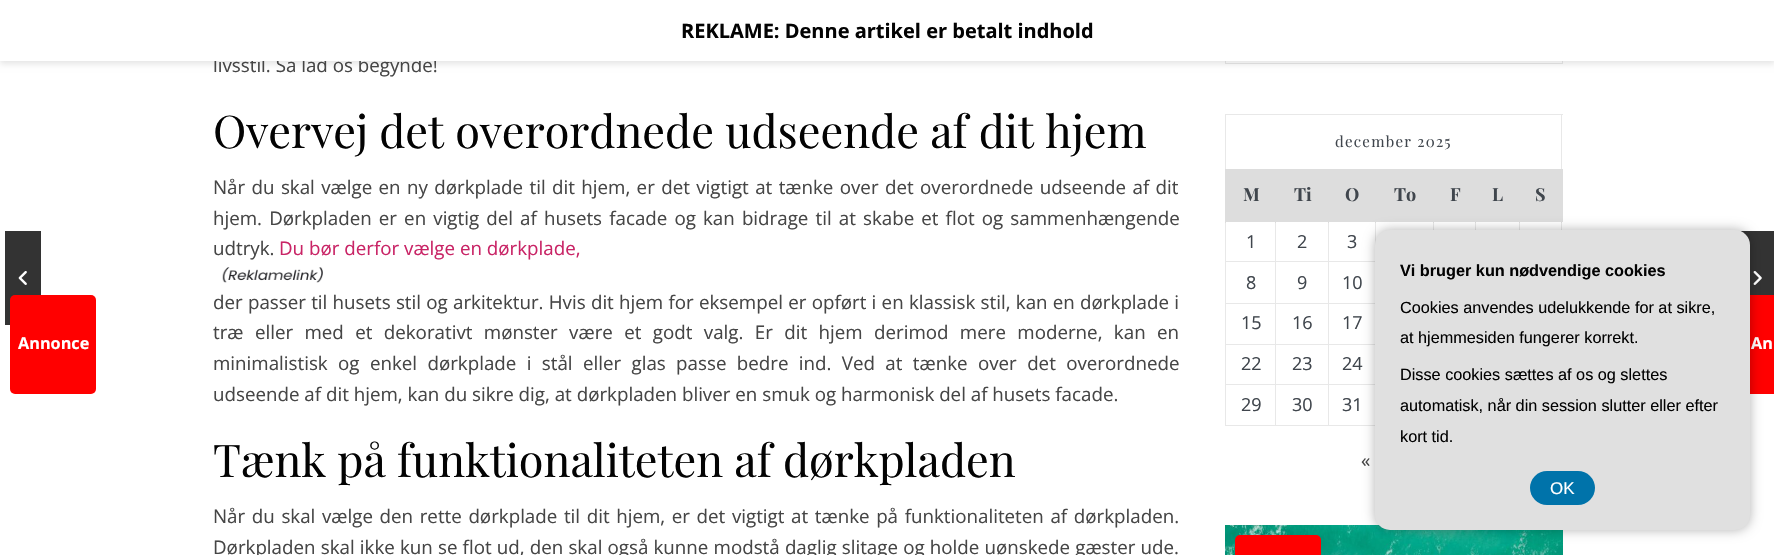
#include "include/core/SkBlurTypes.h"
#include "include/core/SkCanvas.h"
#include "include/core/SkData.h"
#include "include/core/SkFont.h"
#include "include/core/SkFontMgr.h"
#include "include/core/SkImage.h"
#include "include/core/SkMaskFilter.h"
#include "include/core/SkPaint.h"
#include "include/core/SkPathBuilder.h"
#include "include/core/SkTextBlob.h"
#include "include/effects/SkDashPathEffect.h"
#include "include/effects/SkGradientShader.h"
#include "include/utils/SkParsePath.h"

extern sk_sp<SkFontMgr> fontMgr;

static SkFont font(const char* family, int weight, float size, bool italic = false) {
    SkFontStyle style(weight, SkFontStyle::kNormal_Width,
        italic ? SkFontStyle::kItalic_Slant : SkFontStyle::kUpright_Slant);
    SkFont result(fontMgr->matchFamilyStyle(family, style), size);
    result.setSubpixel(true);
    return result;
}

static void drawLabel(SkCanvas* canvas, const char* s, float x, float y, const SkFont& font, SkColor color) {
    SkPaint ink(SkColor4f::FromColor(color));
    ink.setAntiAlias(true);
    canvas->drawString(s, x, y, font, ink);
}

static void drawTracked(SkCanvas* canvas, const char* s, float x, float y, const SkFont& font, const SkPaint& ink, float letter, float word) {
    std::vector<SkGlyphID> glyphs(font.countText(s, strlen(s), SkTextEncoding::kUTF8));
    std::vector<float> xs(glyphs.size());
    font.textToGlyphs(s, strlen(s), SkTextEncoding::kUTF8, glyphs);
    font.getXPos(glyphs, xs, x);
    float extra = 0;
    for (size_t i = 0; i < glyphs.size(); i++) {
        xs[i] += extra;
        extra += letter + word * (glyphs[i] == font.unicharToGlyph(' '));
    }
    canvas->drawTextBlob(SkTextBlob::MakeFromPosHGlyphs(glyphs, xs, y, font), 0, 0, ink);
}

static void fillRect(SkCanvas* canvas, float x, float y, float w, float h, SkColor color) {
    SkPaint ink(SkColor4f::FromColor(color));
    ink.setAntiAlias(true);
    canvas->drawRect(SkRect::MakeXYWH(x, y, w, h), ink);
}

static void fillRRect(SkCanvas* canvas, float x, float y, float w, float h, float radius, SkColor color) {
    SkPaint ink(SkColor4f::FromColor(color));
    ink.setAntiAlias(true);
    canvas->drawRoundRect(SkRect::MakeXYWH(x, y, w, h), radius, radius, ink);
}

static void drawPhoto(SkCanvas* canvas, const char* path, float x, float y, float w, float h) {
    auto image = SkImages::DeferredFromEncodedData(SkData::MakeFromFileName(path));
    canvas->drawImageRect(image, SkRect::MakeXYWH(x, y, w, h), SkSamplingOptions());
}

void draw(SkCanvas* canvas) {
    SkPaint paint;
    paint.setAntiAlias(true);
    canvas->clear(0xFFFFFFFF);
    paint.setStroke(true);
    paint.setStrokeWidth(1);
    paint.setColor(0xFFE8E8E8);
    canvas->drawRect(SkRect::MakeXYWH(1225.5f, 0.5f, 337, 63), paint);
    paint.setStroke(false);
    paint.setColor(0x1A000000);
    paint.setMaskFilter(SkMaskFilter::MakeBlur(kNormal_SkBlurStyle, 3));
    canvas->drawRect(SkRect::MakeXYWH(0, 3, 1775, 61), paint);
    paint.setMaskFilter(nullptr);
    SkFont font1 = font("Open Sans", 400, 18.75f);
    drawLabel(canvas, "livsstil. Så lad os begynde!", 213, 72, font1, 0xFF464646);
    fillRect(canvas, 0, 0, 1774, 61, 0xFFFFFFFF);
    SkFont font2 = font("Open Sans", 700, 20);
    drawLabel(canvas, "REKLAME: Denne artikel er betalt indhold", 681, 38, font2, 0xFF030303);
    fillRect(canvas, 5, 231, 36, 94, 0xFF333333);
    drawPhoto(canvas, "assets/img1.png", 18, 271, 9, 14);
    fillRRect(canvas, 10, 295, 86, 99, 5, 0xFFFF0000);
    SkFont font3 = font("Open Sans", 700, 16.25f);
    drawLabel(canvas, "Annonce", 18, 349, font3, 0xFFFFFFFF);
    SkFont font4 = font("Playfair Display", 400, 45);
    drawLabel(canvas, "Overvej det overordnede udseende af dit hjem", 213, 148, font4, 0xFF030303);
    paint.setColor(0xFF464646);
    drawTracked(canvas, "Når du skal vælge en ny dørkplade til dit hjem, er det vigtigt at tænke over det overordnede udseende af dit", 213, 194, font1, paint, 0, 1.5f);
    drawTracked(canvas, "hjem. Dørkpladen er en vigtig del af husets facade og kan bidrage til at skabe et flot og sammenhængende", 213, 225, font1, paint, 0, 2.25f);
    drawLabel(canvas, "udtryk.", 213, 255, font1, 0xFF464646);
    drawLabel(canvas, "Du bør derfor vælge en dørkplade,", 279, 255, font1, 0xFFC92466);
    drawPhoto(canvas, "assets/img2.png", 222, 267, 101, 16);
    drawTracked(canvas, "der passer til husets stil og arkitektur. Hvis dit hjem for eksempel er opført i en klassisk stil, kan en dørkplade i", 213, 309, font1, paint, 0, 0.4f);
    drawTracked(canvas, "træ eller med et dekorativt mønster være et godt valg. Er dit hjem derimod mere moderne, kan en", 213, 339, font1, paint, 0, 6.5f);
    drawTracked(canvas, "minimalistisk og enkel dørkplade i stål eller glas passe bedre ind. Ved at tænke over det overordnede", 213, 370, font1, paint, 0, 5.5f);
    drawLabel(canvas, "udseende af dit hjem, kan du sikre dig, at dørkpladen bliver en smuk og harmonisk del af husets facade.", 213, 401, font1, 0xFF464646);
    drawLabel(canvas, "Tænk på funktionaliteten af dørkpladen", 213, 477, font4, 0xFF030303);
    drawTracked(canvas, "Når du skal vælge den rette dørkplade til dit hjem, er det vigtigt at tænke på funktionaliteten af dørkpladen.", 213, 523, font1, paint, 0, 1.75f);
    drawTracked(canvas, "Dørkpladen skal ikke kun se flot ud, den skal også kunne modstå daglig slitage og holde uønskede gæster ude.", 213, 554, font1, paint, 0, 0.3f);
    fillRect(canvas, 1740, 231, 34, 64, 0xFF333333);
    drawPhoto(canvas, "assets/img3.png", 1753, 271, 9, 14);
    fillRect(canvas, 1750, 295, 24, 99, 0xFFFF0000);
    drawLabel(canvas, "An", 1751, 349, font3, 0xFFFFFFFF);
    fillRect(canvas, 1225, 114, 338, 1, 0xFFE8E8E8);
    fillRect(canvas, 1520, 170, 43, 51, 0xFFDDDDDD);
    fillRect(canvas, 1561, 114, 1, 116, 0xFFE8E8E8);
    fillRect(canvas, 1225, 425, 150, 1, 0xFFE8E8E8);
    fillRect(canvas, 1225, 114, 1, 312, 0xFFE8E8E8);
    SkFont font5 = font("Playfair Display", 400, 15);
    paint.setColor(0xFF40464D);
    drawTracked(canvas, "december 2025", 1335, 147, font5, paint, 1.25f, 0);
    fillRect(canvas, 1226, 170, 49, 51, 0xFFDDDDDD);
    fillRect(canvas, 1519, 169, 44, 1, 0xFFDDDDDD);
    fillRect(canvas, 1561, 169, 1, 54, 0xFFDDDDDD);
    fillRect(canvas, 1519, 221, 1, 9, 0xFFE8E8E8);
    fillRect(canvas, 1519, 221, 44, 1, 0xFFDDDDDD);
    fillRect(canvas, 1519, 169, 1, 54, 0xFFDDDDDD);
    fillRect(canvas, 1475, 169, 45, 1, 0xFFDDDDDD);
    fillRect(canvas, 1475, 221, 1, 9, 0xFFE8E8E8);
    fillRect(canvas, 1475, 221, 45, 1, 0xFFDDDDDD);
    fillRect(canvas, 1475, 169, 1, 54, 0xFFDDDDDD);
    fillRect(canvas, 1433, 169, 43, 1, 0xFFDDDDDD);
    fillRect(canvas, 1433, 221, 1, 9, 0xFFE8E8E8);
    fillRect(canvas, 1433, 221, 43, 1, 0xFFDDDDDD);
    fillRect(canvas, 1433, 169, 1, 54, 0xFFDDDDDD);
    fillRect(canvas, 1375, 169, 59, 1, 0xFFDDDDDD);
    fillRect(canvas, 1375, 221, 1, 24, 0xFFE8E8E8);
    fillRect(canvas, 1375, 221, 59, 1, 0xFFDDDDDD);
    fillRect(canvas, 1375, 169, 1, 54, 0xFFDDDDDD);
    fillRect(canvas, 1328, 169, 48, 1, 0xFFDDDDDD);
    fillRect(canvas, 1225, 261, 150, 1, 0xFFE8E8E8);
    fillRect(canvas, 1225, 303, 150, 1, 0xFFE8E8E8);
    fillRect(canvas, 1225, 344, 150, 1, 0xFFE8E8E8);
    fillRect(canvas, 1225, 384, 150, 1, 0xFFE8E8E8);
    fillRect(canvas, 1328, 221, 1, 205, 0xFFE8E8E8);
    fillRect(canvas, 1328, 221, 48, 1, 0xFFDDDDDD);
    fillRect(canvas, 1328, 169, 1, 54, 0xFFDDDDDD);
    fillRect(canvas, 1275, 169, 54, 1, 0xFFDDDDDD);
    fillRect(canvas, 1275, 221, 1, 205, 0xFFE8E8E8);
    fillRect(canvas, 1275, 221, 54, 1, 0xFFDDDDDD);
    fillRect(canvas, 1275, 169, 1, 54, 0xFFDDDDDD);
    fillRect(canvas, 1225, 169, 51, 1, 0xFFDDDDDD);
    fillRect(canvas, 1225, 221, 51, 1, 0xFFDDDDDD);
    fillRect(canvas, 1225, 169, 1, 54, 0xFFDDDDDD);
    SkFont font6 = font("Playfair Display", 700, 18);
    drawLabel(canvas, "M", 1243, 201, font6, 0xFF40464D);
    fillRect(canvas, 1276, 170, 52, 51, 0xFFDDDDDD);
    drawLabel(canvas, "Ti", 1294, 201, font6, 0xFF40464D);
    fillRect(canvas, 1329, 170, 46, 51, 0xFFDDDDDD);
    drawLabel(canvas, "O", 1345, 201, font6, 0xFF40464D);
    fillRect(canvas, 1376, 170, 57, 51, 0xFFDDDDDD);
    drawLabel(canvas, "To", 1394, 201, font6, 0xFF40464D);
    fillRect(canvas, 1434, 170, 41, 51, 0xFFDDDDDD);
    drawLabel(canvas, "F", 1450, 201, font6, 0xFF40464D);
    fillRect(canvas, 1476, 170, 43, 51, 0xFFDDDDDD);
    drawLabel(canvas, "L", 1492, 201, font6, 0xFF40464D);
    drawLabel(canvas, "S", 1535, 201, font6, 0xFF40464D);
    SkFont font7 = font("Open Sans", 400, 18);
    drawLabel(canvas, "1", 1246, 248, font7, 0xFF40464D);
    drawLabel(canvas, "2", 1297, 248, font7, 0xFF40464D);
    drawLabel(canvas, "3", 1347, 248, font7, 0xFF40464D);
    drawLabel(canvas, "8", 1246, 289, font7, 0xFF40464D);
    drawLabel(canvas, "9", 1297, 289, font7, 0xFF40464D);
    drawLabel(canvas, "10", 1342, 289, font7, 0xFF40464D);
    drawLabel(canvas, "15", 1241, 329, font7, 0xFF40464D);
    drawLabel(canvas, "16", 1292, 329, font7, 0xFF40464D);
    drawLabel(canvas, "17", 1342, 329, font7, 0xFF40464D);
    drawLabel(canvas, "22", 1241, 370, font7, 0xFF40464D);
    drawLabel(canvas, "23", 1292, 370, font7, 0xFF40464D);
    drawLabel(canvas, "24", 1342, 370, font7, 0xFF40464D);
    drawLabel(canvas, "29", 1241, 411, font7, 0xFF40464D);
    drawLabel(canvas, "30", 1292, 411, font7, 0xFF40464D);
    drawLabel(canvas, "31", 1342, 411, font7, 0xFF40464D);
    drawLabel(canvas, "«", 1361, 467, font1, 0xFF464646);
    drawPhoto(canvas, "assets/img4.png", 1225, 525, 338, 30);
    fillRRect(canvas, 1235, 535, 86, 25, 5, 0xFFFF0000);
    paint.setColor(0x4D000000);
    paint.setMaskFilter(SkMaskFilter::MakeBlur(kNormal_SkBlurStyle, 6));
    canvas->drawRoundRect(SkRect::MakeXYWH(1375, 230, 375, 300), 15, 15, paint);
    paint.setMaskFilter(nullptr);
    fillRRect(canvas, 1375, 230, 375, 300, 15, 0xFFE0E0E0);
    SkFont font8 = font("Liberation Sans", 700, 16.25f);
    drawLabel(canvas, "Vi bruger kun nødvendige cookies", 1400, 276, font8, 0xFF030303);
    SkFont font9 = font("Liberation Sans", 400, 16.25f);
    drawLabel(canvas, "Cookies anvendes udelukkende for at sikre,", 1400, 313, font9, 0xFF030303);
    drawLabel(canvas, "at hjemmesiden fungerer korrekt.", 1400, 343, font9, 0xFF030303);
    drawLabel(canvas, "Disse cookies sættes af os og slettes", 1400, 380, font9, 0xFF030303);
    drawLabel(canvas, "automatisk, når din session slutter eller efter", 1400, 411, font9, 0xFF030303);
    drawLabel(canvas, "kort tid.", 1400, 442, font9, 0xFF030303);
    fillRRect(canvas, 1530, 471, 65, 34, 17, 0xFF0073AA);
    SkFont font10 = font("Liberation Sans", 400, 17);
    drawLabel(canvas, "OK", 1550, 494, font10, 0xFFFFFFFF);
}
